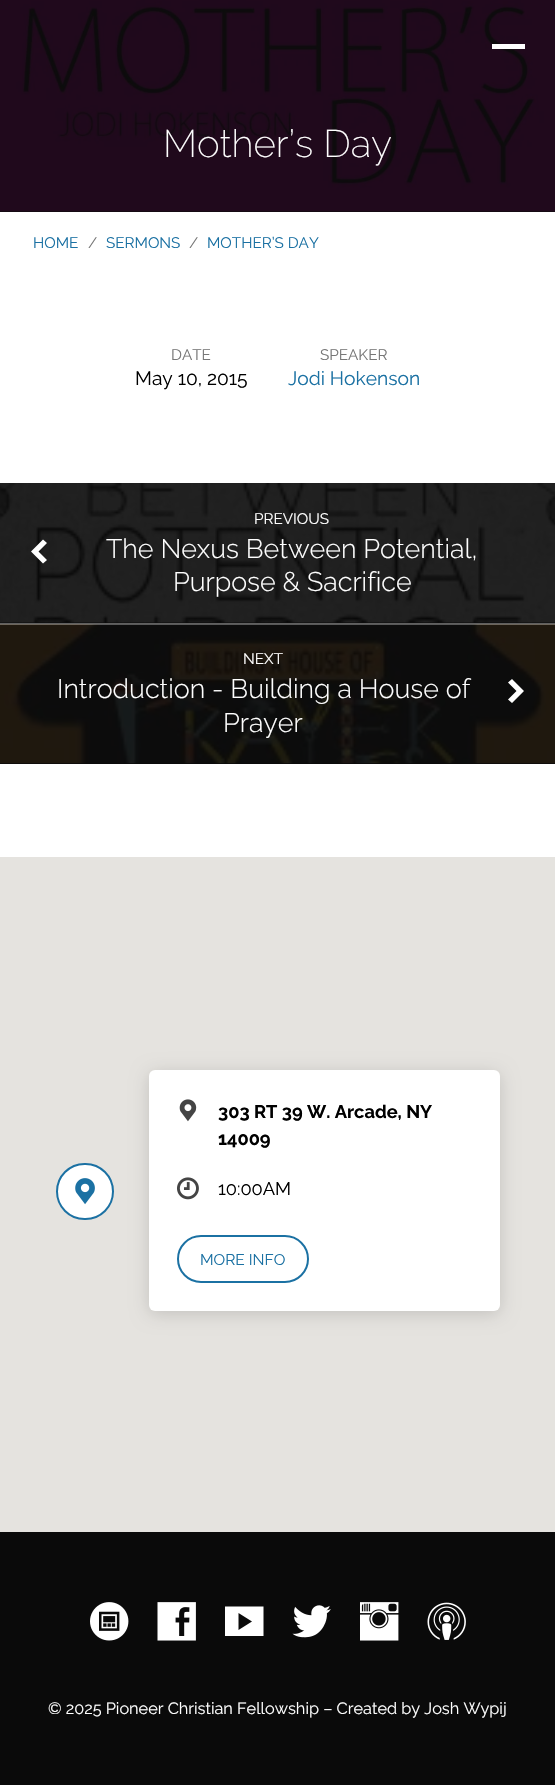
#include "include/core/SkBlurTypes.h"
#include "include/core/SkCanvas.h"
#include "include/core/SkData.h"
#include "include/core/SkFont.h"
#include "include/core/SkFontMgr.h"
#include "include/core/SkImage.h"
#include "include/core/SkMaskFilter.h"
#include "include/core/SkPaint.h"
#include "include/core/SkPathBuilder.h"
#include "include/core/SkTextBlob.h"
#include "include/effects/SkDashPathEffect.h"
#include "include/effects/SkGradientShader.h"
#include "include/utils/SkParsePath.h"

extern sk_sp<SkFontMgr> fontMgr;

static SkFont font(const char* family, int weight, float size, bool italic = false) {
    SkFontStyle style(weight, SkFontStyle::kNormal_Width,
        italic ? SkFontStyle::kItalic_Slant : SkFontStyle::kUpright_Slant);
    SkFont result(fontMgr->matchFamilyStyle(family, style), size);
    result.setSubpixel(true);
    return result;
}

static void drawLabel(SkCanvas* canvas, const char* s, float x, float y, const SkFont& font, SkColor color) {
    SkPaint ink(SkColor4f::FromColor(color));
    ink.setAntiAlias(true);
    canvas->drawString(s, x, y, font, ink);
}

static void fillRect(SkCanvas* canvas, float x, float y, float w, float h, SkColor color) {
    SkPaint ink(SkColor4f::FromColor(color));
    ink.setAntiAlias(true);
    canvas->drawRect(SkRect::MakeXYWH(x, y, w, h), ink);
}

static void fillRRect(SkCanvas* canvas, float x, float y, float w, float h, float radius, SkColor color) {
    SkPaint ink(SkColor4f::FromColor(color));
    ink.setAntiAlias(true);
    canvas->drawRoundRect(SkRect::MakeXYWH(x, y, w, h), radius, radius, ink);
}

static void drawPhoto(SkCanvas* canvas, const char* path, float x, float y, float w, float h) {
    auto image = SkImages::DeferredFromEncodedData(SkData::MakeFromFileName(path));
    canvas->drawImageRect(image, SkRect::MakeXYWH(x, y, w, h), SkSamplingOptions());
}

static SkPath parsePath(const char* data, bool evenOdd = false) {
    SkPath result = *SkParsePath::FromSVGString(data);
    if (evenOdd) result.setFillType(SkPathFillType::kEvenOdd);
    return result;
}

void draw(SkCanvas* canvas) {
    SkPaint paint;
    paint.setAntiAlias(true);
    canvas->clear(0xFFFFFFFF);
    fillRect(canvas, 0, 0, 555, 212, 0xFF0A0A0A);
    drawPhoto(canvas, "assets/img1.png", 0, 0, 555, 212);
    fillRect(canvas, 492, 44, 33, 5, 0xFFFFFFFF);
    SkFont font1 = font("Raleway", 200, 38.5f);
    drawLabel(canvas, "Mother’s Day", 163, 157, font1, 0xFFFFFFFF);
    SkFont font2 = font("Raleway", 400, 15.25f);
    drawLabel(canvas, "HOME", 33, 248, font2, 0xFF1B71A3);
    drawLabel(canvas, "/", 88, 248, font2, 0xFF777777);
    drawLabel(canvas, "SERMONS", 106, 248, font2, 0xFF1B71A3);
    drawLabel(canvas, "/", 189, 248, font2, 0xFF777777);
    drawLabel(canvas, "MOTHER’S DAY", 207, 248, font2, 0xFF1B71A3);
    drawLabel(canvas, "DATE", 171, 360, font2, 0xFF777777);
    SkFont font3 = font("Raleway", 400, 19.25f);
    drawLabel(canvas, "May 10, 2015", 135, 385, font3, 0xFF000000);
    drawLabel(canvas, "SPEAKER", 320, 360, font2, 0xFF777777);
    drawLabel(canvas, "Jodi Hokenson", 288, 385, font3, 0xFF1B71A3);
    fillRect(canvas, 0, 483, 555, 281, 0xFF0A0A0A);
    fillRect(canvas, 0, 623, 555, 2, 0xFF606060);
    drawPhoto(canvas, "assets/img2.png", 0, 483, 555, 140);
    paint.setColor(0xFFFFFFFF);
    canvas->drawPath(parsePath("M31 551.5L43 539.5L47 543L38.5 551.5L47 560L43 563.5Z"), paint);
    drawLabel(canvas, "PREVIOUS", 254, 524, font2, 0xFFFFFFFF);
    SkFont font4 = font("Raleway", 300, 26.9f);
    drawLabel(canvas, "The Nexus Between Potential,", 106, 558, font4, 0xFFFFFFFF);
    drawLabel(canvas, "Purpose & Sacrifice", 173, 591, font4, 0xFFFFFFFF);
    drawPhoto(canvas, "assets/img3.png", 0, 624, 555, 140);
    drawLabel(canvas, "NEXT", 243, 664, font2, 0xFFFFFFFF);
    drawLabel(canvas, "Introduction - Building a House of", 57, 698, font4, 0xFFFFFFFF);
    drawLabel(canvas, "Prayer", 223, 732, font4, 0xFFFFFFFF);
    canvas->drawPath(parsePath("M524 691L512 703L508 699.5L516.5 691L508 682.5L512 679Z"), paint);
    fillRect(canvas, 0, 857, 555, 675, 0xFFE5E3DF);
    canvas->drawRoundRect(SkRect::MakeXYWH(57, 1164, 56, 55), 27.5f, 27.5f, paint);
    paint.setStroke(true);
    paint.setStrokeWidth(2);
    paint.setColor(0xFF1B71A3);
    canvas->drawRoundRect(SkRect::MakeXYWH(57, 1164, 56, 55), 27.5f, 27.5f, paint);
    drawPhoto(canvas, "assets/img4.png", 75, 1178, 20, 27);
    paint.setStroke(false);
    paint.setColor(0x26000000);
    paint.setMaskFilter(SkMaskFilter::MakeBlur(kNormal_SkBlurStyle, 9));
    canvas->drawRoundRect(SkRect::MakeXYWH(149, 1073, 351, 241), 6, 6, paint);
    paint.setMaskFilter(nullptr);
    fillRRect(canvas, 149, 1070, 351, 241, 6, 0xFFFFFFFF);
    drawPhoto(canvas, "assets/img5.png", 179, 1099, 18, 23);
    SkFont font5 = font("Raleway", 700, 18.25f);
    drawLabel(canvas, "303 RT 39 W. Arcade, NY", 218, 1118, font5, 0xFF000000);
    drawLabel(canvas, "14009", 218, 1145, font5, 0xFF000000);
    drawPhoto(canvas, "assets/img6.png", 177, 1177, 22, 23);
    SkFont font6 = font("Raleway", 400, 18.25f);
    drawLabel(canvas, "10:00AM", 218, 1195, font6, 0xFF000000);
    paint.setStroke(true);
    paint.setColor(0xFF1B71A3);
    canvas->drawRoundRect(SkRect::MakeXYWH(178, 1236, 130, 46), 23, 23, paint);
    SkFont font7 = font("Raleway", 400, 15.5f);
    drawLabel(canvas, "MORE INFO", 200, 1265, font7, 0xFF1B71A3);
    fillRect(canvas, 0, 1532, 555, 253, 0xFF0A0A0A);
    drawPhoto(canvas, "assets/img7.png", 90, 1602, 39, 39);
    drawPhoto(canvas, "assets/img8.png", 157, 1602, 39, 39);
    paint.setStroke(false);
    paint.setColor(0xFFFFFFFF);
    canvas->drawPath(parsePath("M263.5 1636H225V1606.5H263.5ZM238.5 1630L252 1621.5L238.5 1613Z"), paint);
    drawPhoto(canvas, "assets/img9.png", 292, 1605, 39, 33);
    drawPhoto(canvas, "assets/img10.png", 360, 1602, 39, 39);
    drawPhoto(canvas, "assets/img11.png", 427, 1602, 39, 38);
    SkFont font8 = font("Raleway", 400, 16.3f);
    drawLabel(canvas, "© 2025 Pioneer Christian Fellowship – Created by Josh Wypij", 48, 1714, font8, 0xFFFFFFFF);
}
